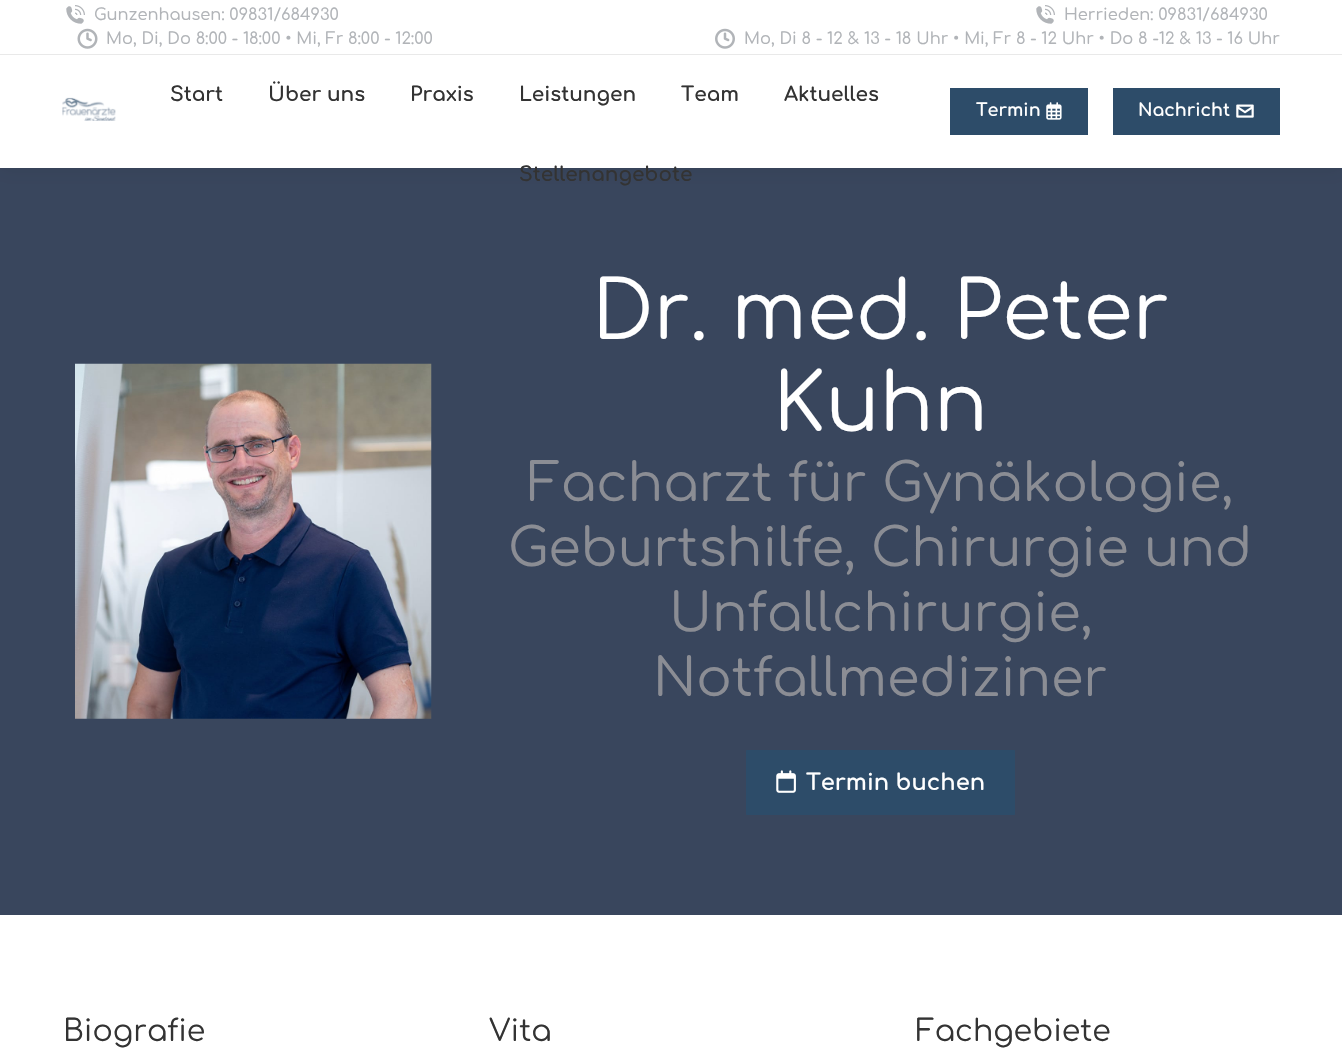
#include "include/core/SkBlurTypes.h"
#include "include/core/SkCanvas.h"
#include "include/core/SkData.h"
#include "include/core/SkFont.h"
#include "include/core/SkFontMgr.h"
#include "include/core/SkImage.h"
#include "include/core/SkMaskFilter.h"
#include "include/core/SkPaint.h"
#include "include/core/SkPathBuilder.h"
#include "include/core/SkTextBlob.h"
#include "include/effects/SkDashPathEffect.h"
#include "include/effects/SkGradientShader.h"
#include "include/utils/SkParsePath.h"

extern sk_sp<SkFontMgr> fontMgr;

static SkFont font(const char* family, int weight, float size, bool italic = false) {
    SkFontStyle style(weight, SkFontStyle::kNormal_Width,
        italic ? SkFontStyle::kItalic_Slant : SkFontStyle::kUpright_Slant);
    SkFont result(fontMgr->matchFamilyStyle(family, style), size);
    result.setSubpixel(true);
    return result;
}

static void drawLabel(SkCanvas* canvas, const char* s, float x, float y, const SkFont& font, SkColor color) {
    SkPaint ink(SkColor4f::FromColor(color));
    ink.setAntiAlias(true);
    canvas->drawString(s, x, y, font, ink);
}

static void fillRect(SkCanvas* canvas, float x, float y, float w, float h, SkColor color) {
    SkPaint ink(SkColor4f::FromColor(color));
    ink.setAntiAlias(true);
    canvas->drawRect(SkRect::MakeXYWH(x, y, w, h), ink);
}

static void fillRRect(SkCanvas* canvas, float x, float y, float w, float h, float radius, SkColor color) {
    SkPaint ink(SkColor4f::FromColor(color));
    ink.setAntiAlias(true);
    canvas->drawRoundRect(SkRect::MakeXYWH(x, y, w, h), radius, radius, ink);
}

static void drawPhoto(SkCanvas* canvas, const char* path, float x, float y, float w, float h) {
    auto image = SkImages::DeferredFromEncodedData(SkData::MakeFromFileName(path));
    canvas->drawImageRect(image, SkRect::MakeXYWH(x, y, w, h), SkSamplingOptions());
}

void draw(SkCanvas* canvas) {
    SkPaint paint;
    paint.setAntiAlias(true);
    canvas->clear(0xFFFFFFFF);
    fillRect(canvas, 0, 168, 1342, 747, 0xFF39465D);
    paint.setColor(0x12000000);
    paint.setMaskFilter(SkMaskFilter::MakeBlur(kNormal_SkBlurStyle, 9.5f));
    canvas->drawRect(SkRect::MakeXYWH(-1, -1, 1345, 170), paint);
    paint.setMaskFilter(nullptr);
    fillRect(canvas, 0, 0, 1342, 168, 0xFFFFFFFF);
    drawPhoto(canvas, "assets/img1.png", 66, 5, 19, 19);
    SkFont font1 = font("Comfortaa", 500, 16.25f);
    drawLabel(canvas, "Gunzenhausen: 09831/684930", 94, 20, font1, 0xFFB1B4B8);
    drawPhoto(canvas, "assets/img2.png", 77, 28, 21, 21);
    drawLabel(canvas, "Mo, Di, Do 8:00 - 18:00 • Mi, Fr 8:00 - 12:00", 106, 44, font1, 0xFFB1B4B8);
    drawPhoto(canvas, "assets/img1.png", 1036, 5, 19, 19);
    drawLabel(canvas, "Herrieden: 09831/684930", 1064, 20, font1, 0xFFB1B4B8);
    drawPhoto(canvas, "assets/img3.png", 715, 28, 20, 21);
    drawLabel(canvas, "Mo, Di 8 - 12 & 13 - 18 Uhr • Mi, Fr 8 - 12 Uhr • Do 8 -12 & 13 - 16 Uhr", 744, 44, font1, 0xFFB1B4B8);
    fillRect(canvas, 0, 54, 1342, 1, 0xFFE9E9E9);
    drawPhoto(canvas, "assets/img4.png", 62, 97, 54, 24);
    SkFont font2 = font("Comfortaa", 700, 20);
    drawLabel(canvas, "Start", 170, 101, font2, 0xFF333333);
    drawLabel(canvas, "Über uns", 268, 101, font2, 0xFF333333);
    drawLabel(canvas, "Praxis", 410, 101, font2, 0xFF333333);
    drawLabel(canvas, "Leistungen", 519, 101, font2, 0xFF333333);
    drawLabel(canvas, "Team", 681, 101, font2, 0xFF333333);
    drawLabel(canvas, "Aktuelles", 784, 101, font2, 0xFF333333);
    drawLabel(canvas, "Stellenangebote", 519, 181, font2, 0xFF333333);
    fillRect(canvas, 950, 88, 138, 47, 0xFF2D4C69);
    SkFont font3 = font("Comfortaa", 700, 17.5f);
    drawLabel(canvas, "Termin", 976, 116, font3, 0xFFFFFFFF);
    drawPhoto(canvas, "assets/img5.png", 1046, 102, 16, 18);
    fillRect(canvas, 1113, 88, 167, 47, 0xFF2D4C69);
    drawLabel(canvas, "Nachricht", 1138, 116, font3, 0xFFFFFFFF);
    drawPhoto(canvas, "assets/img6.png", 1236, 104, 18, 14);
    drawPhoto(canvas, "assets/img7.png", 75, 363, 357, 356);
    SkFont font4 = font("Comfortaa", 400, 80);
    drawLabel(canvas, "Dr. med. Peter", 592, 339, font4, 0xFFFFFFFF);
    drawLabel(canvas, "Kuhn", 773, 431, font4, 0xFFFFFFFF);
    SkFont font5 = font("Comfortaa", 400, 52.5f);
    drawLabel(canvas, "Facharzt für Gynäkologie,", 528, 501, font5, 0xFF8B8D94);
    drawLabel(canvas, "Geburtshilfe, Chirurgie und", 508, 566, font5, 0xFF8B8D94);
    drawLabel(canvas, "Unfallchirurgie,", 669, 631, font5, 0xFF8B8D94);
    drawLabel(canvas, "Notfallmediziner", 653, 696, font5, 0xFF8B8D94);
    fillRRect(canvas, 746, 750, 269, 65, 1, 0xFF2D4C69);
    drawPhoto(canvas, "assets/img8.png", 776, 770, 20, 23);
    SkFont font6 = font("Comfortaa", 700, 22.5f);
    drawLabel(canvas, "Termin buchen", 806, 790, font6, 0xFFFFFFFF);
    SkFont font7 = font("Comfortaa", 400, 30);
    drawLabel(canvas, "Biografie", 63, 1041, font7, 0xFF333333);
    drawLabel(canvas, "Vita", 489, 1041, font7, 0xFF333333);
    drawLabel(canvas, "Fachgebiete", 916, 1041, font7, 0xFF333333);
}
